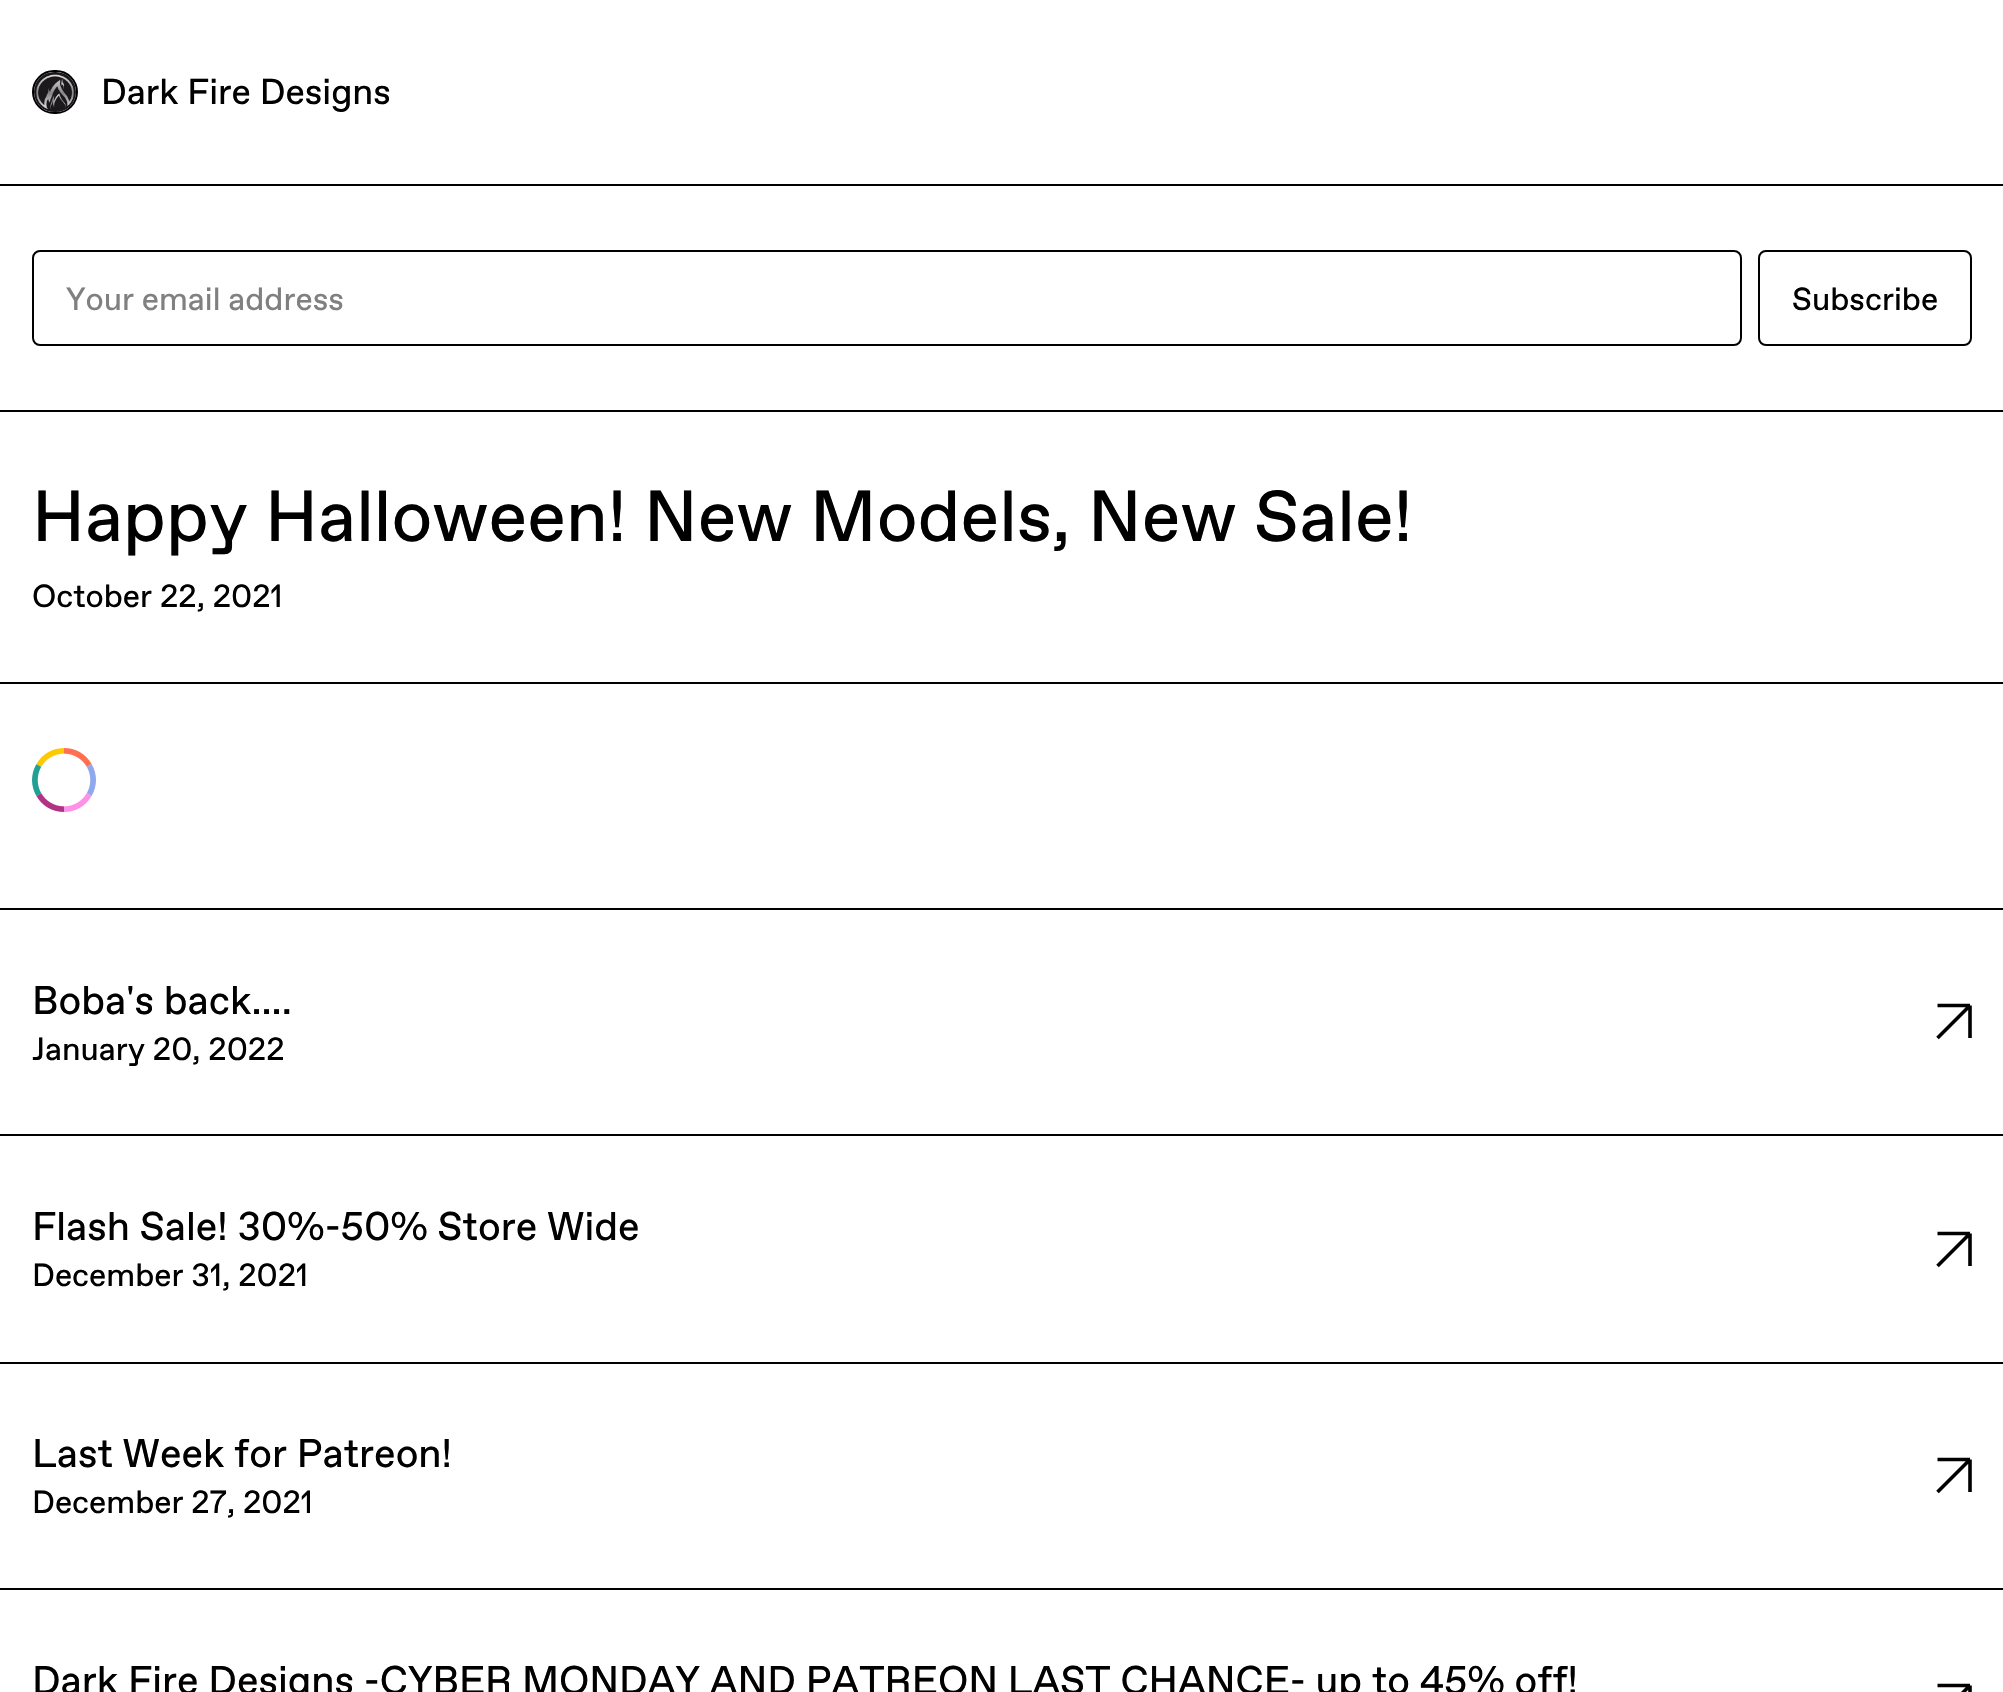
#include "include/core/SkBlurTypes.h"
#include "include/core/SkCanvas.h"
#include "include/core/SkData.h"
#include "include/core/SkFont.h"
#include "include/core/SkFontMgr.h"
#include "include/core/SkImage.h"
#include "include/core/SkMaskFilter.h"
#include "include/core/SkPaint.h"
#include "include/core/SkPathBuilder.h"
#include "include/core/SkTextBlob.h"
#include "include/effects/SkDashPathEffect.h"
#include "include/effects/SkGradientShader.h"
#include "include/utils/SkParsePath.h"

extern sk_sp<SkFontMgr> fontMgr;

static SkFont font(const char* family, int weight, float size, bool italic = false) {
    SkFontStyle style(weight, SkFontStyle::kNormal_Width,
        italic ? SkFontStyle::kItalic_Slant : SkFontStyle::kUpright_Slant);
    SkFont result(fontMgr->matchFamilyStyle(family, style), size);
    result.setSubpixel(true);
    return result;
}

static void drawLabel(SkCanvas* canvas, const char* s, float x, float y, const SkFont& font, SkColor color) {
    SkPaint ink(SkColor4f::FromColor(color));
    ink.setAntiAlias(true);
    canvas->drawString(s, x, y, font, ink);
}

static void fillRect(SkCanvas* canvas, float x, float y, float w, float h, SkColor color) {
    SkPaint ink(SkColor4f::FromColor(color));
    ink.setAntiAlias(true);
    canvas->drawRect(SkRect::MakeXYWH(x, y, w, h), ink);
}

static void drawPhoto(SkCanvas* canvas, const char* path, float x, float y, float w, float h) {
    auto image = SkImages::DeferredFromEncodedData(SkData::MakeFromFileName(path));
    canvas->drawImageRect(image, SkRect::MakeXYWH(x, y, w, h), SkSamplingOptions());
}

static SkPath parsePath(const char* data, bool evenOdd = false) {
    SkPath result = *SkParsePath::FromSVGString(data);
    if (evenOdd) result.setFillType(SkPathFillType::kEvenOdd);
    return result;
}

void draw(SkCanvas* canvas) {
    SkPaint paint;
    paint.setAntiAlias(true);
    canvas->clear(0xFFFFFFFF);
    fillRect(canvas, 0, 184, 2003, 2, 0xFF000000);
    paint.setStroke(true);
    paint.setStrokeWidth(2);
    paint.setColor(0xFF000000);
    canvas->drawRoundRect(SkRect::MakeXYWH(33, 71, 44, 42), 21, 21, paint);
    drawPhoto(canvas, "assets/img1.png", 34, 72, 42, 40);
    SkFont font1 = font("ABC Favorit", 400, 36);
    drawLabel(canvas, "Dark Fire Designs", 101, 104, font1, 0xFF000000);
    fillRect(canvas, 0, 410, 2003, 2, 0xFF000000);
    canvas->drawRoundRect(SkRect::MakeXYWH(33, 251, 1708, 94), 7, 7, paint);
    SkFont font2 = font("ABC Favorit", 400, 32);
    drawLabel(canvas, "Your email address", 66, 310, font2, 0xFF808080);
    canvas->drawRoundRect(SkRect::MakeXYWH(1759, 251, 212, 94), 7, 7, paint);
    drawLabel(canvas, "Subscribe", 1792, 310, font2, 0xFF000000);
    fillRect(canvas, 0, 682, 2003, 2, 0xFF000000);
    SkFont font3 = font("ABC Favorit", 400, 72);
    drawLabel(canvas, "Happy Halloween! New Models, New Sale!", 32, 541, font3, 0xFF000000);
    drawLabel(canvas, "October 22, 2021", 32, 607, font2, 0xFF000000);
    fillRect(canvas, 0, 908, 2003, 2, 0xFF000000);
    drawPhoto(canvas, "assets/img2.png", 32, 748, 64, 64);
    fillRect(canvas, 0, 1134, 2003, 2, 0xFF000000);
    SkFont font4 = font("ABC Favorit", 400, 40);
    drawLabel(canvas, "Boba's back....", 32, 1014, font4, 0xFF000000);
    drawLabel(canvas, "January 20, 2022", 32, 1060, font2, 0xFF000000);
    paint.setStrokeWidth(3.6f);
    canvas->drawPath(parsePath("M1937.5 1038L1970 1005.5M1970 1005.5H1937.5M1970 1005.5V1038"), paint);
    fillRect(canvas, 0, 1362, 2003, 2, 0xFF000000);
    drawLabel(canvas, "Flash Sale! 30%-50% Store Wide", 32, 1240, font4, 0xFF000000);
    drawLabel(canvas, "December 31, 2021", 32, 1286, font2, 0xFF000000);
    canvas->drawPath(parsePath("M1937.5 1266L1970 1233.5M1970 1233.5H1937.5M1970 1233.5V1266"), paint);
    fillRect(canvas, 0, 1588, 2003, 2, 0xFF000000);
    drawLabel(canvas, "Last Week for Patreon!", 32, 1467, font4, 0xFF000000);
    drawLabel(canvas, "December 27, 2021", 32, 1513, font2, 0xFF000000);
    canvas->drawPath(parsePath("M1937.5 1492L1970 1459.5M1970 1459.5H1937.5M1970 1459.5V1492"), paint);
    drawLabel(canvas, "Dark Fire Designs -CYBER MONDAY AND PATREON LAST CHANCE- up to 45% off!", 32, 1694, font4, 0xFF000000);
    canvas->drawPath(parsePath("M1937.5 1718L1970 1685.5M1970 1685.5H1937.5M1970 1685.5V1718"), paint);
}
